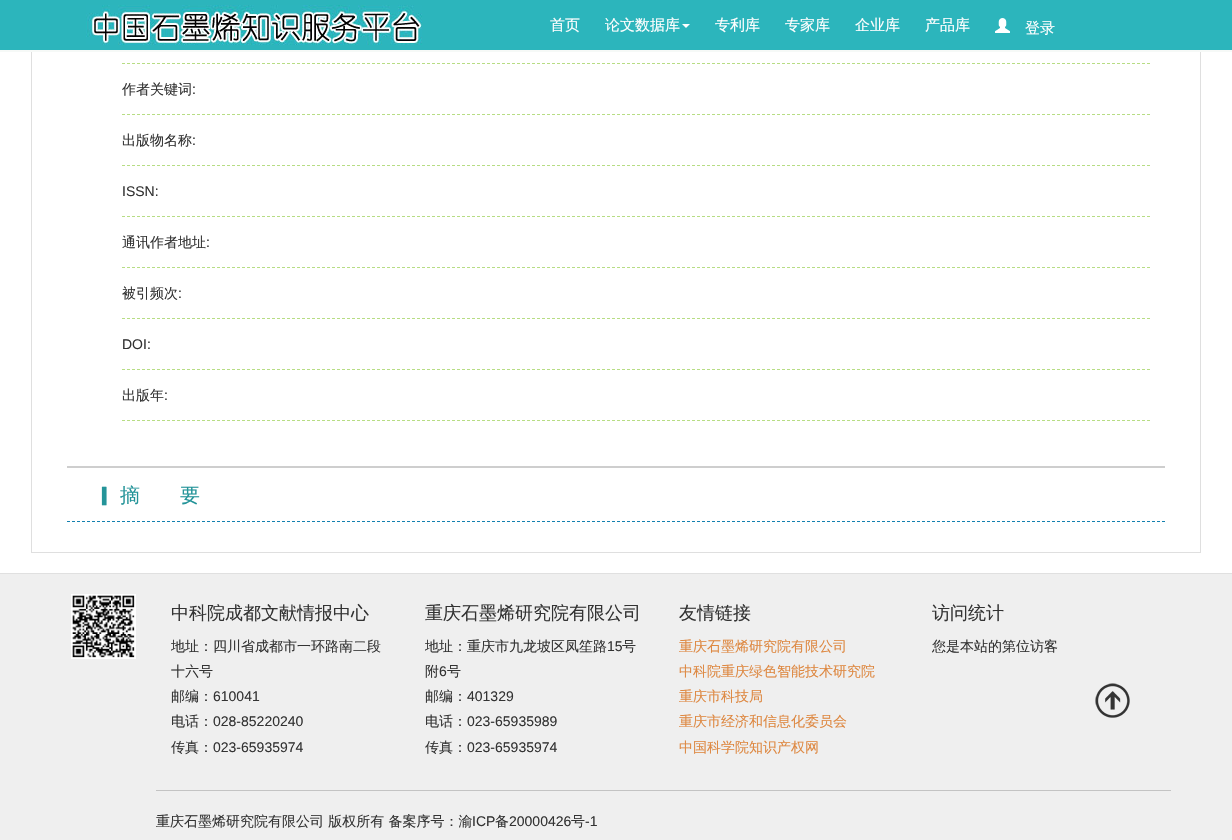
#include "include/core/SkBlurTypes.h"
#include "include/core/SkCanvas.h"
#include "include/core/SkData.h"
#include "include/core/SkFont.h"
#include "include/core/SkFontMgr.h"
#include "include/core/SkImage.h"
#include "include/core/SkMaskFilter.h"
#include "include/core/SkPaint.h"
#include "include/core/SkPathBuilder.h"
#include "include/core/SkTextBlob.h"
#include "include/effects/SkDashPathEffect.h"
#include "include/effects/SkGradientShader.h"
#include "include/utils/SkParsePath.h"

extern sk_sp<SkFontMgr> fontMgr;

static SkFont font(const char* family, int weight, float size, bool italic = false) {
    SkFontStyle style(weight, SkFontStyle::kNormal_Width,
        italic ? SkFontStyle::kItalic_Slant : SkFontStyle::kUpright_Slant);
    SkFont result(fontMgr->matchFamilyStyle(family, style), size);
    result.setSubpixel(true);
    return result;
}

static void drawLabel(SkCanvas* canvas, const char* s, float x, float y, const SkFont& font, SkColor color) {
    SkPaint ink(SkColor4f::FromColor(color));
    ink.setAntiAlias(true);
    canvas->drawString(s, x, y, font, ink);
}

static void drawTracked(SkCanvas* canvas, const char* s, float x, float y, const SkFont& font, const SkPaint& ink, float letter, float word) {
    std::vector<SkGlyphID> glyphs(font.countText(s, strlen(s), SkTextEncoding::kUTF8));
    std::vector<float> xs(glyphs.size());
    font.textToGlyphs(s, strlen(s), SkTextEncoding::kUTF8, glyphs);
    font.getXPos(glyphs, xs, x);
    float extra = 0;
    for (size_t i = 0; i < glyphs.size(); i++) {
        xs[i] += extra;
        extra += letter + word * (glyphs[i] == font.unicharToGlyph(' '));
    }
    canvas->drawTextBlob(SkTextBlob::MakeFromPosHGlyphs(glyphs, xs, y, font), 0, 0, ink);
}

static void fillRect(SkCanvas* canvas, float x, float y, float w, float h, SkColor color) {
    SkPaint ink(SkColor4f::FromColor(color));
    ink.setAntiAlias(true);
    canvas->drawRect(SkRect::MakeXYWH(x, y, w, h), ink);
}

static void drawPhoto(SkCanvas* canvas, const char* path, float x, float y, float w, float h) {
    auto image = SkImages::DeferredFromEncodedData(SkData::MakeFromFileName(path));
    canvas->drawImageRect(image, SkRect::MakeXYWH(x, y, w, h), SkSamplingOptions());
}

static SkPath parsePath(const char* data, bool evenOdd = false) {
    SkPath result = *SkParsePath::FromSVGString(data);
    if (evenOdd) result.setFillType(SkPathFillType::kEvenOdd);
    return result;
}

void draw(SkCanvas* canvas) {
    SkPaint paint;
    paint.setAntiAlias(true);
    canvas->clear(0xFFFFFFFF);
    paint.setStroke(true);
    paint.setStrokeWidth(1);
    paint.setColor(0xFFDFDFDF);
    canvas->drawRect(SkRect::MakeXYWH(31.5f, -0.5f, 1169, 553), paint);
    fillRect(canvas, 0, 0, 1232, 50, 0xFF2CB5BC);
    fillRect(canvas, 0, 50, 1232, 2, 0xFFF6F9F7);
    drawPhoto(canvas, "assets/img1.png", 86, 5, 336, 40);
    SkFont font1 = font("WenQuanYi Zen Hei", 500, 15);
    drawLabel(canvas, "首页", 550, 30, font1, 0xFFFFFFFF);
    drawLabel(canvas, "论文数据库", 605, 30, font1, 0xFFFFFFFF);
    paint.setStroke(false);
    paint.setColor(0xFFFFFFFF);
    canvas->drawPath(parsePath("M682 24H690L686 28Z"), paint);
    drawLabel(canvas, "专利库", 715, 30, font1, 0xFFFFFFFF);
    drawLabel(canvas, "专家库", 785, 30, font1, 0xFFFFFFFF);
    drawLabel(canvas, "企业库", 855, 30, font1, 0xFFFFFFFF);
    drawLabel(canvas, "产品库", 925, 30, font1, 0xFFFFFFFF);
    drawPhoto(canvas, "assets/img2.png", 995, 18, 15, 15);
    drawLabel(canvas, "登录", 1025, 33, font1, 0xFFFFFFFF);
    paint.setStroke(true);
    paint.setColor(0xFFB7DD84);
    paint.setPathEffect(SkDashPathEffect::Make({{3, 2}}, 0));
    canvas->drawPath(parsePath("M122 63.5H1150"), paint);
    paint.setPathEffect(nullptr);
    paint.setPathEffect(SkDashPathEffect::Make({{3, 2}}, 0));
    canvas->drawPath(parsePath("M122 114.5H1150"), paint);
    paint.setPathEffect(nullptr);
    SkFont font2 = font("WenQuanYi Zen Hei", 500, 14);
    drawLabel(canvas, "作者关键词", 122, 94, font2, 0xFF333333);
    SkFont font3 = font("Liberation Sans", 400, 14);
    drawLabel(canvas, ":", 192, 94, font3, 0xFF333333);
    paint.setPathEffect(SkDashPathEffect::Make({{3, 2}}, 0));
    canvas->drawPath(parsePath("M122 165.5H1150"), paint);
    paint.setPathEffect(nullptr);
    drawLabel(canvas, "出版物名称", 122, 145, font2, 0xFF333333);
    drawLabel(canvas, ":", 192, 145, font3, 0xFF333333);
    paint.setPathEffect(SkDashPathEffect::Make({{3, 2}}, 0));
    canvas->drawPath(parsePath("M122 216.5H1150"), paint);
    paint.setPathEffect(nullptr);
    drawLabel(canvas, "ISSN:", 122, 196, font3, 0xFF333333);
    paint.setPathEffect(SkDashPathEffect::Make({{3, 2}}, 0));
    canvas->drawPath(parsePath("M122 267.5H1150"), paint);
    paint.setPathEffect(nullptr);
    drawLabel(canvas, "通讯作者地址", 122, 247, font2, 0xFF333333);
    drawLabel(canvas, ":", 206, 247, font3, 0xFF333333);
    paint.setPathEffect(SkDashPathEffect::Make({{3, 2}}, 0));
    canvas->drawPath(parsePath("M122 318.5H1150"), paint);
    paint.setPathEffect(nullptr);
    drawLabel(canvas, "被引频次", 122, 298, font2, 0xFF333333);
    drawLabel(canvas, ":", 178, 298, font3, 0xFF333333);
    paint.setPathEffect(SkDashPathEffect::Make({{3, 2}}, 0));
    canvas->drawPath(parsePath("M122 369.5H1150"), paint);
    paint.setPathEffect(nullptr);
    drawLabel(canvas, "DOI:", 122, 349, font3, 0xFF333333);
    paint.setPathEffect(SkDashPathEffect::Make({{3, 2}}, 0));
    canvas->drawPath(parsePath("M122 420.5H1150"), paint);
    paint.setPathEffect(nullptr);
    drawLabel(canvas, "出版年", 122, 400, font2, 0xFF333333);
    drawLabel(canvas, ":", 164, 400, font3, 0xFF333333);
    fillRect(canvas, 67, 466, 1098, 2, 0xFFCECECE);
    paint.setColor(0xFF1481AF);
    paint.setPathEffect(SkDashPathEffect::Make({{3, 2}}, 0));
    canvas->drawPath(parsePath("M67 521.5H1165"), paint);
    paint.setPathEffect(nullptr);
    SkFont font4 = font("WenQuanYi Zen Hei", 500, 20);
    paint.setStroke(false);
    paint.setColor(0xFF249499);
    drawTracked(canvas, "▎ 摘　　要", 95, 502, font4, paint, 0, -1);
    fillRect(canvas, 0, 574, 1232, 266, 0xFFEFEFEF);
    fillRect(canvas, 0, 573, 1232, 1, 0xFFE0E0E0);
    drawPhoto(canvas, "assets/img3.png", 71, 594, 65, 65);
    SkFont font5 = font("WenQuanYi Zen Hei", 500, 18);
    drawLabel(canvas, "中科院成都文献情报中心", 171, 619, font5, 0xFF333333);
    drawLabel(canvas, "地址：四川省成都市一环路南二段", 171, 651, font2, 0xFF333333);
    drawLabel(canvas, "十六号", 171, 676, font2, 0xFF333333);
    drawLabel(canvas, "邮编：", 171, 701, font2, 0xFF333333);
    drawLabel(canvas, "610041", 213, 701, font3, 0xFF333333);
    drawLabel(canvas, "电话：", 171, 726, font2, 0xFF333333);
    drawLabel(canvas, "028-85220240", 213, 726, font3, 0xFF333333);
    drawLabel(canvas, "传真：", 171, 752, font2, 0xFF333333);
    drawLabel(canvas, "023-65935974", 213, 752, font3, 0xFF333333);
    drawLabel(canvas, "重庆石墨烯研究院有限公司", 425, 619, font5, 0xFF333333);
    drawLabel(canvas, "地址：重庆市九龙坡区凤笙路", 425, 651, font2, 0xFF333333);
    drawLabel(canvas, "15", 607, 651, font3, 0xFF333333);
    drawLabel(canvas, "号", 622, 651, font2, 0xFF333333);
    drawLabel(canvas, "附", 425, 676, font2, 0xFF333333);
    drawLabel(canvas, "6", 439, 676, font3, 0xFF333333);
    drawLabel(canvas, "号", 447, 676, font2, 0xFF333333);
    drawLabel(canvas, "邮编：", 425, 701, font2, 0xFF333333);
    drawLabel(canvas, "401329", 467, 701, font3, 0xFF333333);
    drawLabel(canvas, "电话：", 425, 726, font2, 0xFF333333);
    drawLabel(canvas, "023-65935989", 467, 726, font3, 0xFF333333);
    drawLabel(canvas, "传真：", 425, 752, font2, 0xFF333333);
    drawLabel(canvas, "023-65935974", 467, 752, font3, 0xFF333333);
    drawLabel(canvas, "友情链接", 679, 619, font5, 0xFF333333);
    drawLabel(canvas, "重庆石墨烯研究院有限公司", 679, 651, font2, 0xFFDE8841);
    drawLabel(canvas, "中科院重庆绿色智能技术研究院", 679, 676, font2, 0xFFDE8841);
    drawLabel(canvas, "重庆市科技局", 679, 701, font2, 0xFFDE8841);
    drawLabel(canvas, "重庆市经济和信息化委员会", 679, 726, font2, 0xFFDE8841);
    drawLabel(canvas, "中国科学院知识产权网", 679, 752, font2, 0xFFDE8841);
    drawLabel(canvas, "访问统计", 932, 619, font5, 0xFF333333);
    drawLabel(canvas, "您是本站的第位访客", 932, 651, font2, 0xFF333333);
    fillRect(canvas, 156, 790, 1015, 1, 0xFFC3C3C3);
    drawLabel(canvas, "重庆石墨烯研究院有限公司 版权所有 备案序号：渝", 156, 826, font2, 0xFF333333);
    drawLabel(canvas, "ICP", 472, 826, font3, 0xFF333333);
    drawLabel(canvas, "备", 495, 826, font2, 0xFF333333);
    drawLabel(canvas, "20000426", 509, 826, font3, 0xFF333333);
    drawLabel(canvas, "号", 571, 826, font2, 0xFF333333);
    drawLabel(canvas, "-1", 585, 826, font3, 0xFF333333);
    drawPhoto(canvas, "assets/img4.png", 1095, 683, 35, 35);
}
